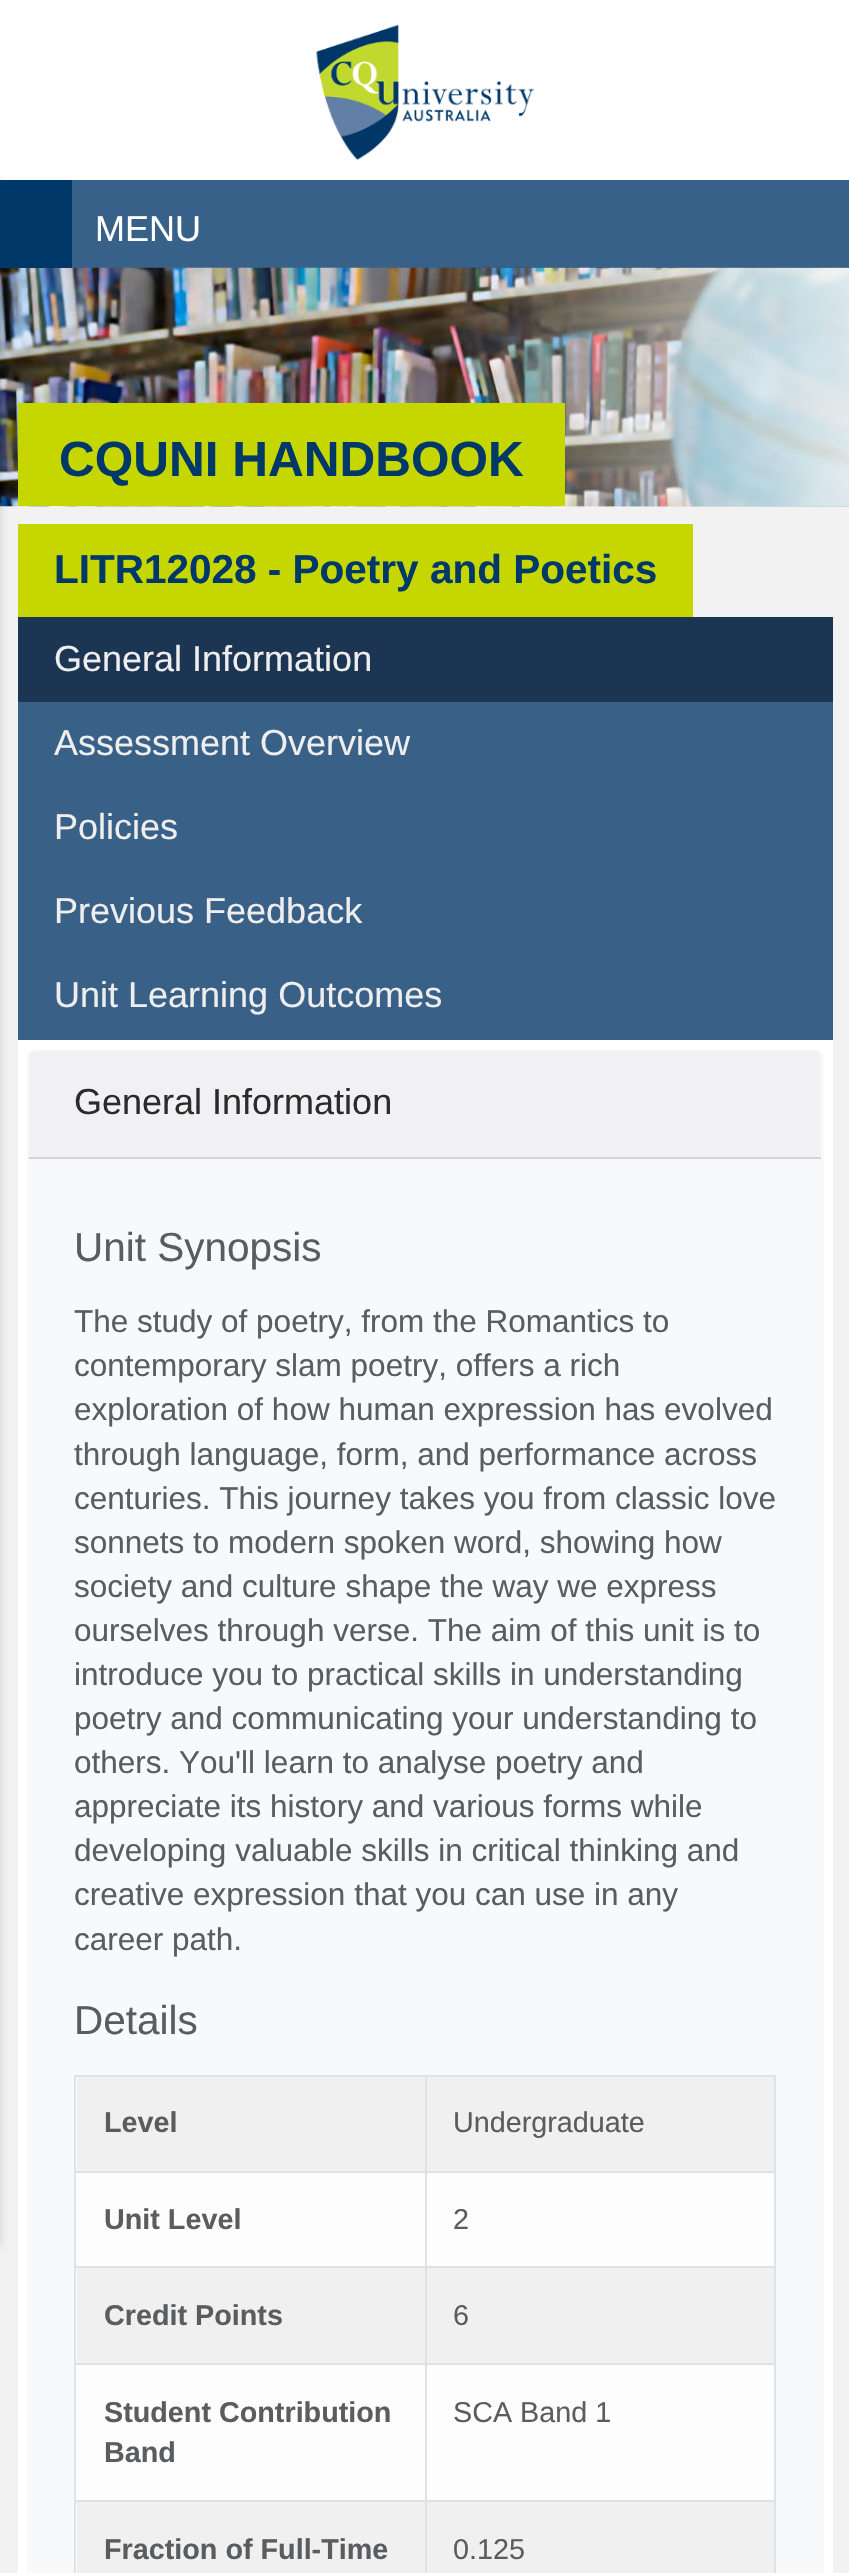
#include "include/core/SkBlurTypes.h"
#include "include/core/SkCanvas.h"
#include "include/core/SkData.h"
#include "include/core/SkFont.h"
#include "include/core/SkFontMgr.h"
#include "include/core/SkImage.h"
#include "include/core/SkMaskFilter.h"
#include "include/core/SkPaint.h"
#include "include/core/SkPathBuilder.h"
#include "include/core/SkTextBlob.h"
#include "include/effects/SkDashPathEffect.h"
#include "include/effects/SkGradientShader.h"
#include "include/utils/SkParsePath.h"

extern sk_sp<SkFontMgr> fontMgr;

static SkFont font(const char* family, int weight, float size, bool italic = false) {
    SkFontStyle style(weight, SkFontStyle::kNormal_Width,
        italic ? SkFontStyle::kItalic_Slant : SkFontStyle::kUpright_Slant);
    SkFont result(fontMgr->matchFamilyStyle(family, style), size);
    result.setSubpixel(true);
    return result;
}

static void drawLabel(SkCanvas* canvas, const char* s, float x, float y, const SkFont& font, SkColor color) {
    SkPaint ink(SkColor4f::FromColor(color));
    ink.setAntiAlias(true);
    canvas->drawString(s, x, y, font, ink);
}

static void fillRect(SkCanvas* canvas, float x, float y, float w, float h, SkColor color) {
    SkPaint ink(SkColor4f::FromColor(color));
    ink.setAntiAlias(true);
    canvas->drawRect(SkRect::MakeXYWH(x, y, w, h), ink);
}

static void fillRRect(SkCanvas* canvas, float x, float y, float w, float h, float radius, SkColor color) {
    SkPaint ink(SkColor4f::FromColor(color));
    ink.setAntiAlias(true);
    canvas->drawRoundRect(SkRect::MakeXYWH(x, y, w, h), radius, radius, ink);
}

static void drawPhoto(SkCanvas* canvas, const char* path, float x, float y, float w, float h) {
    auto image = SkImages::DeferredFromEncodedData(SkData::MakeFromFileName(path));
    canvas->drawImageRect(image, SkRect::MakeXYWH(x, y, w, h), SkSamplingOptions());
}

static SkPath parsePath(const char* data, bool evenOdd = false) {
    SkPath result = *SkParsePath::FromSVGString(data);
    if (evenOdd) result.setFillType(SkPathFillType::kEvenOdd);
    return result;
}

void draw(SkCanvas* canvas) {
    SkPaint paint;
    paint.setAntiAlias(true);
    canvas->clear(0xFFF2F2F2);
    fillRect(canvas, 0, 0, 849, 180, 0xFFFFFFFF);
    fillRect(canvas, 72, 180, 777, 88, 0xFF386189);
    drawPhoto(canvas, "assets/img2.png", 0, 267, 849, 240);
    paint.setColor(0x29000000);
    paint.setMaskFilter(SkMaskFilter::MakeBlur(kNormal_SkBlurStyle, 4.5f));
    canvas->drawRect(SkRect::MakeXYWH(-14, 180, 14, 2066), paint);
    paint.setMaskFilter(nullptr);
    fillRect(canvas, 0, 180, 72, 88, 0xFF00386A);
    drawPhoto(canvas, "assets/img1.png", 316, 24, 218, 136);
    SkFont font1 = font("Liberation Sans", 400, 36);
    drawLabel(canvas, "MENU", 95, 241, font1, 0xFFFFFFFF);
    fillRect(canvas, 18, 403, 547, 103, 0xFFC6D600);
    SkFont font2 = font("Liberation Sans", 700, 49.5f);
    drawLabel(canvas, "CQUNI HANDBOOK", 59, 476, font2, 0xFF003869);
    fillRect(canvas, 18, 524, 675, 93, 0xFFC6D601);
    SkFont font3 = font("Liberation Sans", 700, 40.5f);
    drawLabel(canvas, "LITR12028 - Poetry and Poetics", 54, 583, font3, 0xFF003869);
    fillRect(canvas, 18, 1040, 815, 1533, 0xFFFFFFFF);
    fillRect(canvas, 18, 617, 815, 85, 0xFF1C3553);
    drawLabel(canvas, "General Information", 54, 671, font1, 0xFFEEEEEE);
    fillRect(canvas, 18, 702, 815, 338, 0xFF396187);
    drawLabel(canvas, "Assessment Overview", 54, 755, font1, 0xFFEEEEEE);
    drawLabel(canvas, "Policies", 54, 839, font1, 0xFFEEEEEE);
    drawLabel(canvas, "Previous Feedback", 54, 923, font1, 0xFFEEEEEE);
    drawLabel(canvas, "Unit Learning Outcomes", 54, 1007, font1, 0xFFEEEEEE);
    fillRRect(canvas, 27, 1049, 797, 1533, 9, 0xFFF8F9FA);
    paint.setColor(0xFFF1F1F3);
    canvas->drawPath(parsePath("M36 1051H814C818 1051 821 1054 821 1058V1159H29V1058C29 1054 32 1051 36 1051Z"), paint);
    fillRect(canvas, 29, 1157, 792, 2, 0xFFD3D3D5);
    drawLabel(canvas, "General Information", 74, 1114, font1, 0xFF2B2B2B);
    SkFont font4 = font("Liberation Sans", 400, 40.5f);
    drawLabel(canvas, "Unit Synopsis", 74, 1261, font4, 0xFF5B5C5E);
    SkFont font5 = font("Liberation Sans", 400, 31.5f);
    drawLabel(canvas, "The study of poetry, from the Romantics to", 74, 1332, font5, 0xFF5B5C5E);
    drawLabel(canvas, "contemporary slam poetry, offers a rich", 74, 1376, font5, 0xFF5B5C5E);
    drawLabel(canvas, "exploration of how human expression has evolved", 74, 1420, font5, 0xFF5B5C5E);
    drawLabel(canvas, "through language, form, and performance across", 74, 1465, font5, 0xFF5B5C5E);
    drawLabel(canvas, "centuries. This journey takes you from classic love", 74, 1509, font5, 0xFF5B5C5E);
    drawLabel(canvas, "sonnets to modern spoken word, showing how", 74, 1553, font5, 0xFF5B5C5E);
    drawLabel(canvas, "society and culture shape the way we express", 74, 1597, font5, 0xFF5B5C5E);
    drawLabel(canvas, "ourselves through verse. The aim of this unit is to", 74, 1641, font5, 0xFF5B5C5E);
    drawLabel(canvas, "introduce you to practical skills in understanding", 74, 1685, font5, 0xFF5B5C5E);
    drawLabel(canvas, "poetry and communicating your understanding to", 74, 1729, font5, 0xFF5B5C5E);
    drawLabel(canvas, "others. You'll learn to analyse poetry and", 74, 1773, font5, 0xFF5B5C5E);
    drawLabel(canvas, "appreciate its history and various forms while", 74, 1817, font5, 0xFF5B5C5E);
    drawLabel(canvas, "developing valuable skills in critical thinking and", 74, 1861, font5, 0xFF5B5C5E);
    drawLabel(canvas, "creative expression that you can use in any", 74, 1905, font5, 0xFF5B5C5E);
    drawLabel(canvas, "career path.", 74, 1950, font5, 0xFF5B5C5E);
    drawLabel(canvas, "Details", 74, 2034, font4, 0xFF5B5C5E);
    fillRect(canvas, 76, 2077, 698, 496, 0xFFFDFDFE);
    fillRect(canvas, 77, 2077, 697, 94, 0xFFF0F0F1);
    fillRect(canvas, 425, 2075, 351, 2, 0xFFDEE2E6);
    fillRect(canvas, 425, 2171, 351, 2, 0xFFDEE2E6);
    fillRect(canvas, 425, 2266, 351, 2, 0xFFDEE2E6);
    fillRect(canvas, 77, 2268, 697, 95, 0xFFF0F0F1);
    fillRect(canvas, 425, 2363, 351, 2, 0xFFDEE2E6);
    fillRect(canvas, 425, 2500, 351, 2, 0xFFDEE2E6);
    fillRect(canvas, 77, 2502, 697, 71, 0xFFF0F0F1);
    fillRect(canvas, 425, 2500, 2, 73, 0xFFDEE2E6);
    fillRect(canvas, 74, 2500, 354, 2, 0xFFDEE2E6);
    fillRect(canvas, 425, 2363, 2, 139, 0xFFDEE2E6);
    fillRect(canvas, 74, 2363, 354, 2, 0xFFDEE2E6);
    fillRect(canvas, 425, 2266, 2, 99, 0xFFDEE2E6);
    fillRect(canvas, 74, 2266, 354, 2, 0xFFDEE2E6);
    fillRect(canvas, 425, 2171, 2, 97, 0xFFDEE2E6);
    fillRect(canvas, 74, 2171, 354, 2, 0xFFDEE2E6);
    fillRect(canvas, 425, 2075, 2, 99, 0xFFDEE2E6);
    fillRect(canvas, 74, 2075, 354, 2, 0xFFDEE2E6);
    fillRect(canvas, 74, 2500, 2, 73, 0xFFDEE2E6);
    fillRect(canvas, 74, 2363, 2, 139, 0xFFDEE2E6);
    fillRect(canvas, 74, 2266, 2, 99, 0xFFDEE2E6);
    fillRect(canvas, 74, 2171, 2, 97, 0xFFDEE2E6);
    fillRect(canvas, 74, 2075, 2, 99, 0xFFDEE2E6);
    SkFont font6 = font("Liberation Sans", 700, 28.75f);
    drawLabel(canvas, "Level", 104, 2132, font6, 0xFF5B5C5E);
    fillRect(canvas, 774, 2500, 2, 73, 0xFFDEE2E6);
    fillRect(canvas, 774, 2363, 2, 139, 0xFFDEE2E6);
    fillRect(canvas, 774, 2266, 2, 99, 0xFFDEE2E6);
    fillRect(canvas, 774, 2171, 2, 97, 0xFFDEE2E6);
    fillRect(canvas, 774, 2075, 2, 99, 0xFFDEE2E6);
    SkFont font7 = font("Liberation Sans", 400, 28.75f);
    drawLabel(canvas, "Undergraduate", 453, 2132, font7, 0xFF5B5C5E);
    drawLabel(canvas, "Unit Level", 104, 2229, font6, 0xFF5B5C5E);
    drawLabel(canvas, "2", 453, 2229, font7, 0xFF5B5C5E);
    drawLabel(canvas, "Credit Points", 104, 2325, font6, 0xFF5B5C5E);
    drawLabel(canvas, "6", 453, 2325, font7, 0xFF5B5C5E);
    drawLabel(canvas, "Student Contribution", 104, 2422, font6, 0xFF5B5C5E);
    drawLabel(canvas, "Band", 104, 2462, font6, 0xFF5B5C5E);
    drawLabel(canvas, "SCA Band 1", 453, 2422, font7, 0xFF5B5C5E);
    drawLabel(canvas, "Fraction of Full-Time", 104, 2559, font6, 0xFF5B5C5E);
    drawLabel(canvas, "0.125", 453, 2559, font7, 0xFF5B5C5E);
}
